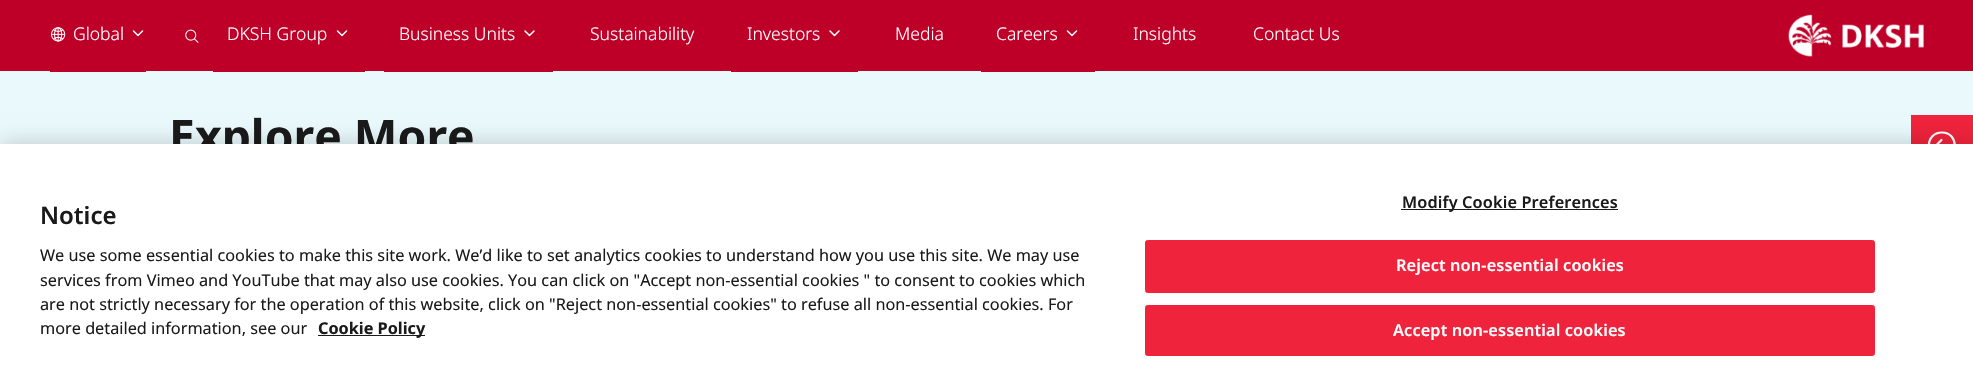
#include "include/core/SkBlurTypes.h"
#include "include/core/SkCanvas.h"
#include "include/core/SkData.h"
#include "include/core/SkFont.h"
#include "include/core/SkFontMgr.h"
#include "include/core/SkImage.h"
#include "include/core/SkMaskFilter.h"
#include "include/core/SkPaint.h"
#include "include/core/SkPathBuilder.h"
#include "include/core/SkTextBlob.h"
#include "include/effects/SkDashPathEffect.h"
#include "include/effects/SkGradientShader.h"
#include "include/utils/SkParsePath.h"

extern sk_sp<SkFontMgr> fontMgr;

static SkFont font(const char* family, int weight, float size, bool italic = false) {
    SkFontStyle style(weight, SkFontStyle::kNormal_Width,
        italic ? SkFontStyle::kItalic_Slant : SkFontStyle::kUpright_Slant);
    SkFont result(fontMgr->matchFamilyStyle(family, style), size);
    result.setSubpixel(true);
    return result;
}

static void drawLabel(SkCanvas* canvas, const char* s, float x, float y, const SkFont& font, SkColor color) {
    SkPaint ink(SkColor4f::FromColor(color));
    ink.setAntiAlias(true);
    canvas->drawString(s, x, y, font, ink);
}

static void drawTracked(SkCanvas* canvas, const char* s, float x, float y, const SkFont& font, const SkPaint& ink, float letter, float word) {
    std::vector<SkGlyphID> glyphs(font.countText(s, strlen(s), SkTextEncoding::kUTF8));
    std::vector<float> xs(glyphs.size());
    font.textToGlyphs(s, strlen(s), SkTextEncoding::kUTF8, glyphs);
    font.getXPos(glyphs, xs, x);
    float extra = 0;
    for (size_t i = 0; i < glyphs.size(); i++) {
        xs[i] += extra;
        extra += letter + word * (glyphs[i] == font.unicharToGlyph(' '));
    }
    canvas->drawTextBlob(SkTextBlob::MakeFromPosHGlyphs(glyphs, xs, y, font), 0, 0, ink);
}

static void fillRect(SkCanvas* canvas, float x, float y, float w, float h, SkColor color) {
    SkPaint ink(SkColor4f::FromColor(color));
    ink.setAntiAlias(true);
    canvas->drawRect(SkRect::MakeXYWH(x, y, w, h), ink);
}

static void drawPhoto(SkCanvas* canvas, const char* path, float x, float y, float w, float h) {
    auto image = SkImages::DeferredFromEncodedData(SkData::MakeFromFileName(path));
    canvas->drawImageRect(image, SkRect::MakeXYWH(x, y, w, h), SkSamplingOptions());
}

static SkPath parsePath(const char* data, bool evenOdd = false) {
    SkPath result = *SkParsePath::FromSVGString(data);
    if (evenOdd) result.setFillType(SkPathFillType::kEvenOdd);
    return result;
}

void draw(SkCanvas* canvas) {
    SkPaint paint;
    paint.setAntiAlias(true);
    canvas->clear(0xFFE9F9FC);
    fillRect(canvas, 0, 0, 1973, 71, 0xFFBE0028);
    fillRect(canvas, 50, 71, 96, 1, 0xFFBE0028);
    drawPhoto(canvas, "assets/img1.png", 51, 27, 15, 15);
    SkFont font1 = font("Noto Sans", 300, 17.5f);
    drawLabel(canvas, "Global", 73, 40, font1, 0xFFFFFFFF);
    paint.setStroke(true);
    paint.setStrokeWidth(1.5f);
    paint.setStrokeCap(SkPaint::kRound_Cap);
    paint.setStrokeJoin(SkPaint::kRound_Join);
    paint.setColor(0xFFFFFFFF);
    canvas->drawPath(parsePath("M133.5 31L138 35.5L142.5 31"), paint);
    drawPhoto(canvas, "assets/img2.png", 185, 29, 14, 14);
    fillRect(canvas, 213, 71, 152, 1, 0xFFBE0028);
    drawLabel(canvas, "DKSH Group", 227, 40, font1, 0xFFFFFFFF);
    canvas->drawPath(parsePath("M337.5 31L342 35.5L346.5 31"), paint);
    fillRect(canvas, 384, 71, 169, 1, 0xFFBE0028);
    drawLabel(canvas, "Business Units", 399, 40, font1, 0xFFFFFFFF);
    canvas->drawPath(parsePath("M525 31L529.5 35.5L534 31"), paint);
    drawLabel(canvas, "Sustainability", 590, 40, font1, 0xFFFFFFFF);
    fillRect(canvas, 731, 71, 127, 1, 0xFFBE0028);
    drawLabel(canvas, "Investors", 747, 40, font1, 0xFFFFFFFF);
    canvas->drawPath(parsePath("M830 31L834.5 35.5L839 31"), paint);
    drawLabel(canvas, "Media", 895, 40, font1, 0xFFFFFFFF);
    fillRect(canvas, 981, 71, 114, 1, 0xFFBE0028);
    drawLabel(canvas, "Careers", 996, 40, font1, 0xFFFFFFFF);
    canvas->drawPath(parsePath("M1067.5 31L1072 35.5L1076.5 31"), paint);
    drawLabel(canvas, "Insights", 1133, 40, font1, 0xFFFFFFFF);
    drawLabel(canvas, "Contact Us", 1253, 40, font1, 0xFFFFFFFF);
    drawPhoto(canvas, "assets/img3.png", 1788, 14, 136, 43);
    fillRect(canvas, 1911, 115, 62, 29, 0xFFEF233C);
    paint.setStrokeWidth(2.2f);
    canvas->drawPath(parsePath("M1941.5 151L1936 145.5L1941.5 140M1937 145.5H1948"), paint);
    paint.setStrokeCap(SkPaint::kButt_Cap);
    paint.setStrokeJoin(SkPaint::kMiter_Join);
    canvas->drawPath(parsePath("M1942 132.5C1924.5 132.5 1924.5 158.5 1942 158.5C1959 158.5 1959 132.5 1942 132.5Z"), paint);
    SkFont font2 = font("Noto Sans", 700, 46.25f);
    drawLabel(canvas, "Explore More", 169, 153, font2, 0xFF1A1A1A);
    paint.setStroke(false);
    paint.setColor(0x33000000);
    paint.setMaskFilter(SkMaskFilter::MakeBlur(kNormal_SkBlurStyle, 11));
    canvas->drawRect(SkRect::MakeXYWH(0, 144, 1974, 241), paint);
    paint.setMaskFilter(nullptr);
    fillRect(canvas, 0, 144, 1973, 240, 0xFFFFFFFF);
    SkFont font3 = font("Noto Sans", 600, 24);
    drawLabel(canvas, "Notice", 40, 224, font3, 0xFF1A1A1A);
    SkFont font4 = font("Noto Sans", 400, 16.25f);
    drawLabel(canvas, "We use some essential cookies to make this site work. We’d like to set analytics cookies to understand how you use this site. We may use", 40, 261, font4, 0xFF1A1A1A);
    drawLabel(canvas, "services from Vimeo and YouTube that may also use cookies. You can click on \"Accept non-essential cookies \" to consent to cookies which", 40, 286, font4, 0xFF1A1A1A);
    drawLabel(canvas, "are not strictly necessary for the operation of this website, click on \"Reject non-essential cookies\" to refuse all non-essential cookies. For", 40, 310, font4, 0xFF1A1A1A);
    drawLabel(canvas, "more detailed information, see our", 40, 334, font4, 0xFF1A1A1A);
    fillRect(canvas, 318, 335, 107, 1, 0xFF1A1A1A);
    SkFont font5 = font("Noto Sans", 700, 16.25f);
    drawLabel(canvas, "Cookie Policy", 318, 334, font5, 0xFF1A1A1A);
    fillRect(canvas, 1401, 209, 217, 1, 0xFF1A1A1A);
    SkFont font6 = font("Noto Sans", 600, 16.25f);
    paint.setColor(0xFF1A1A1A);
    drawTracked(canvas, "Modify Cookie Preferences", 1402, 208, font6, paint, 0.15f, 0);
    paint.setColor(0xFFEF233C);
    canvas->drawRoundRect(SkRect::MakeXYWH(1145.5f, 240.5f, 729, 52), 2, 2, paint);
    paint.setStroke(true);
    paint.setStrokeWidth(1);
    canvas->drawRoundRect(SkRect::MakeXYWH(1145.5f, 240.5f, 729, 52), 2, 2, paint);
    paint.setStroke(false);
    paint.setColor(0xFFFFFFFF);
    drawTracked(canvas, "Reject non-essential cookies", 1396, 271, font6, paint, 0.15f, 0);
    paint.setColor(0xFFEF233C);
    canvas->drawRoundRect(SkRect::MakeXYWH(1145.5f, 305.5f, 729, 50), 2, 2, paint);
    paint.setStroke(true);
    canvas->drawRoundRect(SkRect::MakeXYWH(1145.5f, 305.5f, 729, 50), 2, 2, paint);
    paint.setStroke(false);
    paint.setColor(0xFFFFFFFF);
    drawTracked(canvas, "Accept non-essential cookies", 1393, 336, font6, paint, 0.15f, 0);
}
